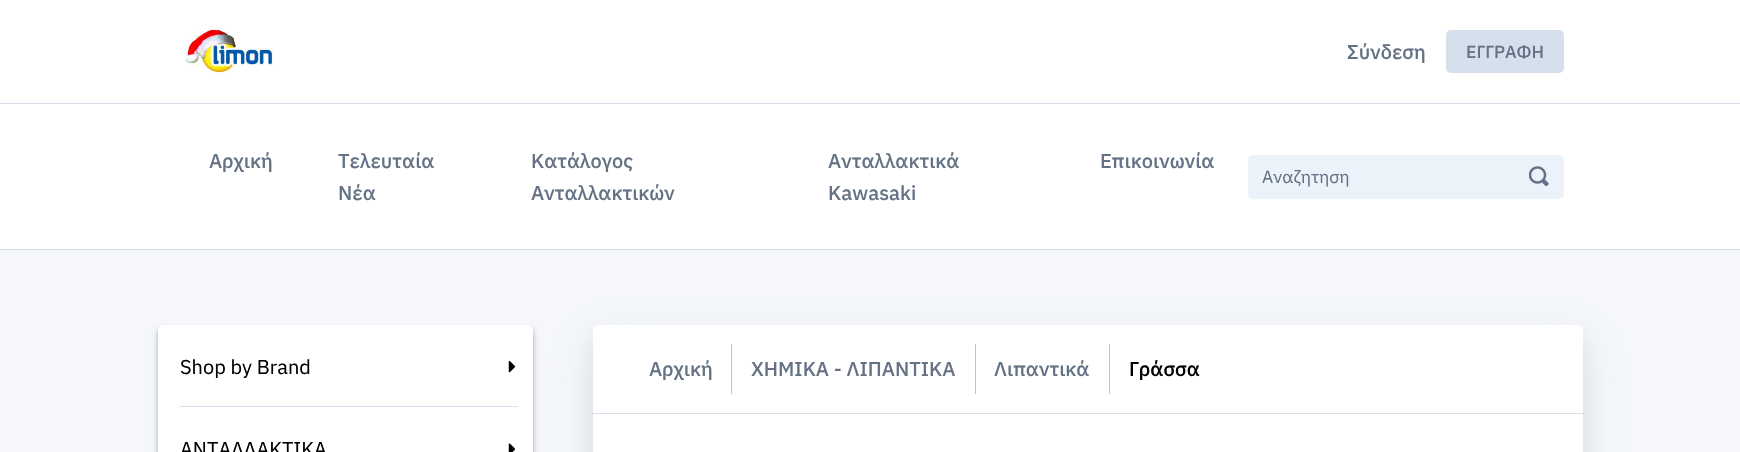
#include "include/core/SkBlurTypes.h"
#include "include/core/SkCanvas.h"
#include "include/core/SkData.h"
#include "include/core/SkFont.h"
#include "include/core/SkFontMgr.h"
#include "include/core/SkImage.h"
#include "include/core/SkMaskFilter.h"
#include "include/core/SkPaint.h"
#include "include/core/SkPathBuilder.h"
#include "include/core/SkTextBlob.h"
#include "include/effects/SkDashPathEffect.h"
#include "include/effects/SkGradientShader.h"
#include "include/utils/SkParsePath.h"

extern sk_sp<SkFontMgr> fontMgr;

static SkFont font(const char* family, int weight, float size, bool italic = false) {
    SkFontStyle style(weight, SkFontStyle::kNormal_Width,
        italic ? SkFontStyle::kItalic_Slant : SkFontStyle::kUpright_Slant);
    SkFont result(fontMgr->matchFamilyStyle(family, style), size);
    result.setSubpixel(true);
    return result;
}

static void drawLabel(SkCanvas* canvas, const char* s, float x, float y, const SkFont& font, SkColor color) {
    SkPaint ink(SkColor4f::FromColor(color));
    ink.setAntiAlias(true);
    canvas->drawString(s, x, y, font, ink);
}

static void fillRect(SkCanvas* canvas, float x, float y, float w, float h, SkColor color) {
    SkPaint ink(SkColor4f::FromColor(color));
    ink.setAntiAlias(true);
    canvas->drawRect(SkRect::MakeXYWH(x, y, w, h), ink);
}

static void fillRRect(SkCanvas* canvas, float x, float y, float w, float h, float radius, SkColor color) {
    SkPaint ink(SkColor4f::FromColor(color));
    ink.setAntiAlias(true);
    canvas->drawRoundRect(SkRect::MakeXYWH(x, y, w, h), radius, radius, ink);
}

static void drawPhoto(SkCanvas* canvas, const char* path, float x, float y, float w, float h) {
    auto image = SkImages::DeferredFromEncodedData(SkData::MakeFromFileName(path));
    canvas->drawImageRect(image, SkRect::MakeXYWH(x, y, w, h), SkSamplingOptions());
}

void draw(SkCanvas* canvas) {
    SkPaint paint;
    paint.setAntiAlias(true);
    canvas->clear(0xFFFFFFFF);
    drawPhoto(canvas, "assets/img1.png", 185, 29, 89, 44);
    SkFont font1 = font("IBM Plex Sans", 500, 20);
    drawLabel(canvas, "Σύνδεση", 1347, 59, font1, 0xFF657285);
    fillRRect(canvas, 1446, 30, 118, 43, 5, 0xFFD6DFEC);
    SkFont font2 = font("IBM Plex Sans", 500, 17.5f);
    drawLabel(canvas, "ΕΓΓΡΑΦΗ", 1466, 58, font2, 0xFF657285);
    fillRect(canvas, 0, 103, 1740, 1, 0xFFD6DFEC);
    fillRect(canvas, 0, 249, 1740, 1, 0xFFD6DFEC);
    drawLabel(canvas, "Αρχική", 209, 168, font1, 0xFF657285);
    drawLabel(canvas, "Τελευταία", 338, 168, font1, 0xFF657285);
    drawLabel(canvas, "Νέα", 338, 200, font1, 0xFF657285);
    drawLabel(canvas, "Κατάλογος", 531, 168, font1, 0xFF657285);
    drawLabel(canvas, "Ανταλλακτικών", 531, 200, font1, 0xFF657285);
    drawLabel(canvas, "Ανταλλακτικά", 828, 168, font1, 0xFF657285);
    drawLabel(canvas, "Kawasaki", 828, 200, font1, 0xFF657285);
    drawLabel(canvas, "Επικοινωνία", 1100, 168, font1, 0xFF657285);
    fillRRect(canvas, 1248, 155, 316, 44, 5, 0xFFECF2FA);
    SkFont font3 = font("IBM Plex Sans", 400, 17.5f);
    drawLabel(canvas, "Αναζητηση", 1262, 183, font3, 0xFF657285);
    drawPhoto(canvas, "assets/img2.png", 1529, 166, 20, 20);
    fillRect(canvas, 0, 250, 1740, 202, 0xFFF5F7FA);
    paint.setColor(0x75BEC5CC);
    paint.setMaskFilter(SkMaskFilter::MakeBlur(kNormal_SkBlurStyle, 4));
    canvas->drawRoundRect(SkRect::MakeXYWH(158, 331, 375, 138), 5, 5, paint);
    paint.setMaskFilter(nullptr);
    paint.setColor(0xFFA5B2C4);
    paint.setMaskFilter(SkMaskFilter::MakeBlur(kNormal_SkBlurStyle, 2));
    canvas->drawRoundRect(SkRect::MakeXYWH(158, 328, 375, 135), 5, 5, paint);
    paint.setMaskFilter(nullptr);
    fillRRect(canvas, 158, 325, 375, 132, 5, 0xFFFFFFFF);
    SkFont font4 = font("IBM Plex Sans", 400, 20);
    drawLabel(canvas, "Shop by Brand", 180, 374, font4, 0xFF000000);
    drawPhoto(canvas, "assets/img3.png", 508, 360, 8, 13);
    fillRect(canvas, 180, 406, 338, 1, 0xFFD6DFEC);
    drawLabel(canvas, "ΑΝΤΑΛΛΑΚΤΙΚΑ", 180, 456, font4, 0xFF000000);
    drawPhoto(canvas, "assets/img4.png", 508, 443, 8, 9);
    paint.setColor(0x4AB6BFCB);
    paint.setMaskFilter(SkMaskFilter::MakeBlur(kNormal_SkBlurStyle, 9));
    canvas->drawRoundRect(SkRect::MakeXYWH(593, 335, 990, 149), 5, 5, paint);
    paint.setMaskFilter(nullptr);
    paint.setColor(0x80C7CDD7);
    paint.setMaskFilter(SkMaskFilter::MakeBlur(kNormal_SkBlurStyle, 22.5f));
    canvas->drawRoundRect(SkRect::MakeXYWH(593, 343, 990, 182), 5, 5, paint);
    paint.setMaskFilter(nullptr);
    fillRRect(canvas, 593, 325, 990, 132, 5, 0xFFFFFFFF);
    fillRect(canvas, 593, 413, 990, 1, 0xFFD6DFEC);
    drawLabel(canvas, "Αρχική", 649, 376, font1, 0xFF657285);
    fillRect(canvas, 731, 344, 1, 50, 0xFFB8C4D4);
    drawLabel(canvas, "ΧΗΜΙΚΑ - ΛΙΠΑΝΤΙΚΑ", 751, 376, font1, 0xFF657285);
    fillRect(canvas, 975, 344, 1, 50, 0xFFB8C4D4);
    drawLabel(canvas, "Λιπαντικά", 994, 376, font1, 0xFF657285);
    fillRect(canvas, 1109, 344, 1, 50, 0xFFB8C4D4);
    drawLabel(canvas, "Γράσσα", 1129, 376, font1, 0xFF000000);
}
